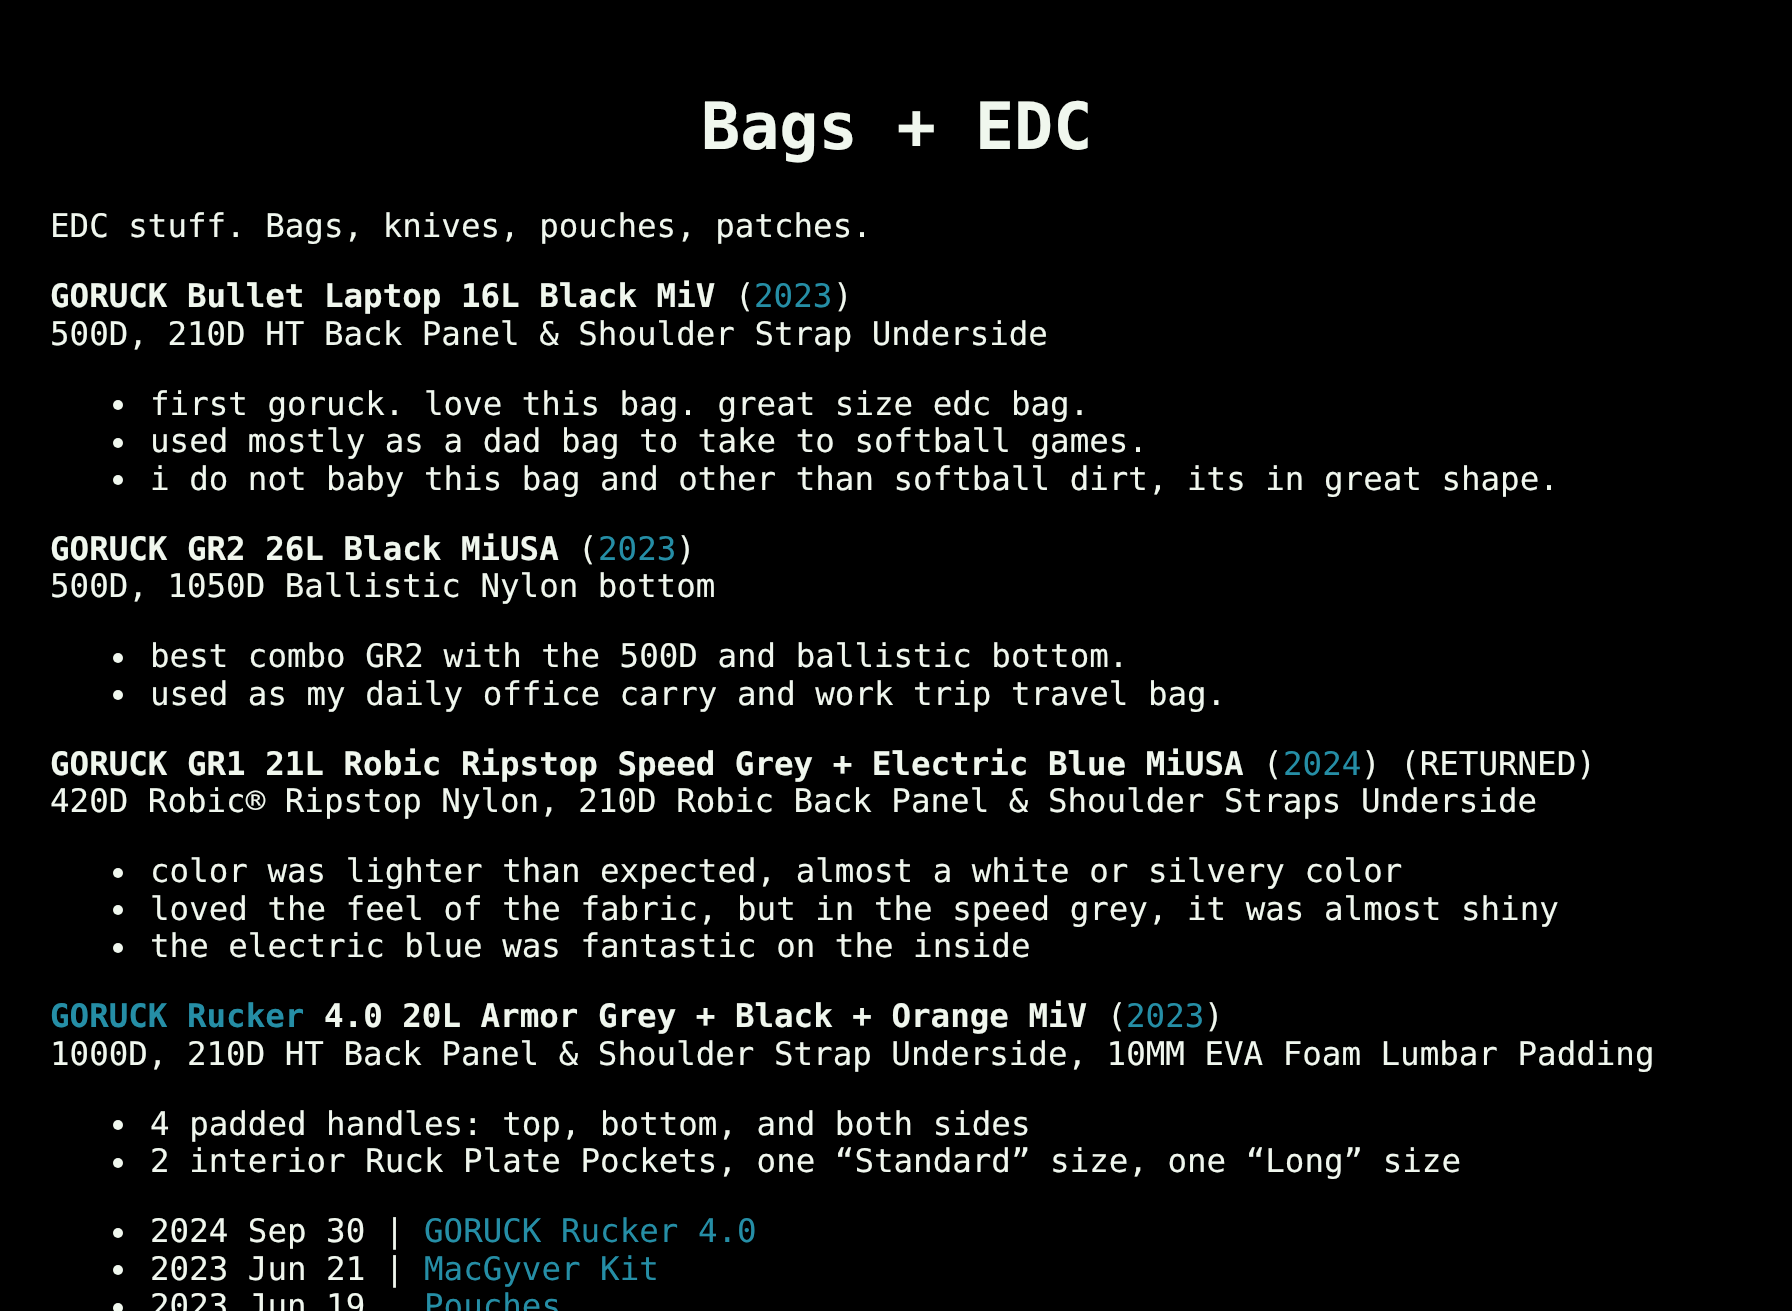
#include "include/core/SkBlurTypes.h"
#include "include/core/SkCanvas.h"
#include "include/core/SkData.h"
#include "include/core/SkFont.h"
#include "include/core/SkFontMgr.h"
#include "include/core/SkImage.h"
#include "include/core/SkMaskFilter.h"
#include "include/core/SkPaint.h"
#include "include/core/SkPathBuilder.h"
#include "include/core/SkTextBlob.h"
#include "include/effects/SkDashPathEffect.h"
#include "include/effects/SkGradientShader.h"
#include "include/utils/SkParsePath.h"

extern sk_sp<SkFontMgr> fontMgr;

static SkFont font(const char* family, int weight, float size, bool italic = false) {
    SkFontStyle style(weight, SkFontStyle::kNormal_Width,
        italic ? SkFontStyle::kItalic_Slant : SkFontStyle::kUpright_Slant);
    SkFont result(fontMgr->matchFamilyStyle(family, style), size);
    result.setSubpixel(true);
    return result;
}

static void drawLabel(SkCanvas* canvas, const char* s, float x, float y, const SkFont& font, SkColor color) {
    SkPaint ink(SkColor4f::FromColor(color));
    ink.setAntiAlias(true);
    canvas->drawString(s, x, y, font, ink);
}

void draw(SkCanvas* canvas) {
    SkPaint paint;
    paint.setAntiAlias(true);
    canvas->clear(0xFF000000);
    SkFont font1 = font("DejaVu Sans Mono", 700, 65);
    drawLabel(canvas, "Bags + EDC", 701, 149, font1, 0xFFF0F7EE);
    SkFont font2 = font("DejaVu Sans Mono", 400, 32.5f);
    drawLabel(canvas, "EDC stuff. Bags, knives, pouches, patches.", 50, 237, font2, 0xFFF0F7EE);
    SkFont font3 = font("DejaVu Sans Mono", 700, 32.5f);
    drawLabel(canvas, "GORUCK Bullet Laptop 16L Black MiV", 50, 307, font3, 0xFFF0F7EE);
    drawLabel(canvas, "(", 735, 307, font2, 0xFFF0F7EE);
    drawLabel(canvas, "2023", 754, 307, font2, 0xFF258EA6);
    drawLabel(canvas, ")", 833, 307, font2, 0xFFF0F7EE);
    drawLabel(canvas, "500D, 210D HT Back Panel & Shoulder Strap Underside", 50, 345, font2, 0xFFF0F7EE);
    paint.setColor(0xFFF0F7EE);
    canvas->drawCircle(118, 405, 5, paint);
    drawLabel(canvas, "first goruck. love this bag. great size edc bag.", 150, 415, font2, 0xFFF0F7EE);
    canvas->drawCircle(118, 443, 5, paint);
    drawLabel(canvas, "used mostly as a dad bag to take to softball games.", 150, 452, font2, 0xFFF0F7EE);
    canvas->drawCircle(118, 480, 5, paint);
    drawLabel(canvas, "i do not baby this bag and other than softball dirt, its in great shape.", 150, 490, font2, 0xFFF0F7EE);
    drawLabel(canvas, "GORUCK GR2 26L Black MiUSA", 50, 560, font3, 0xFFF0F7EE);
    drawLabel(canvas, "(", 578, 560, font2, 0xFFF0F7EE);
    drawLabel(canvas, "2023", 598, 560, font2, 0xFF258EA6);
    drawLabel(canvas, ")", 676, 560, font2, 0xFFF0F7EE);
    drawLabel(canvas, "500D, 1050D Ballistic Nylon bottom", 50, 597, font2, 0xFFF0F7EE);
    canvas->drawCircle(118, 658, 5, paint);
    drawLabel(canvas, "best combo GR2 with the 500D and ballistic bottom.", 150, 667, font2, 0xFFF0F7EE);
    canvas->drawCircle(118, 695, 5, paint);
    drawLabel(canvas, "used as my daily office carry and work trip travel bag.", 150, 705, font2, 0xFFF0F7EE);
    drawLabel(canvas, "GORUCK GR1 21L Robic Ripstop Speed Grey + Electric Blue MiUSA", 50, 775, font3, 0xFFF0F7EE);
    drawLabel(canvas, "(", 1263, 775, font2, 0xFFF0F7EE);
    drawLabel(canvas, "2024", 1283, 775, font2, 0xFF258EA6);
    drawLabel(canvas, ") (RETURNED)", 1361, 775, font2, 0xFFF0F7EE);
    drawLabel(canvas, "420D Robic® Ripstop Nylon, 210D Robic Back Panel & Shoulder Straps Underside", 50, 812, font2, 0xFFF0F7EE);
    canvas->drawCircle(118, 873, 5, paint);
    drawLabel(canvas, "color was lighter than expected, almost a white or silvery color", 150, 882, font2, 0xFFF0F7EE);
    canvas->drawCircle(118, 910, 5, paint);
    drawLabel(canvas, "loved the feel of the fabric, but in the speed grey, it was almost shiny", 150, 920, font2, 0xFFF0F7EE);
    canvas->drawCircle(118, 948, 5, paint);
    drawLabel(canvas, "the electric blue was fantastic on the inside", 150, 957, font2, 0xFFF0F7EE);
    drawLabel(canvas, "GORUCK Rucker", 50, 1027, font3, 0xFF258EA6);
    drawLabel(canvas, "4.0 20L Armor Grey + Black + Orange MiV", 324, 1027, font3, 0xFFF0F7EE);
    drawLabel(canvas, "(", 1107, 1027, font2, 0xFFF0F7EE);
    drawLabel(canvas, "2023", 1126, 1027, font2, 0xFF258EA6);
    drawLabel(canvas, ")", 1204, 1027, font2, 0xFFF0F7EE);
    drawLabel(canvas, "1000D, 210D HT Back Panel & Shoulder Strap Underside, 10MM EVA Foam Lumbar Padding", 50, 1065, font2, 0xFFF0F7EE);
    canvas->drawCircle(118, 1125, 5, paint);
    drawLabel(canvas, "4 padded handles: top, bottom, and both sides", 150, 1135, font2, 0xFFF0F7EE);
    canvas->drawCircle(118, 1163, 5, paint);
    drawLabel(canvas, "2 interior Ruck Plate Pockets, one “Standard” size, one “Long” size", 150, 1172, font2, 0xFFF0F7EE);
    canvas->drawCircle(118, 1233, 5, paint);
    drawLabel(canvas, "2024 Sep 30 |", 150, 1242, font2, 0xFFF0F7EE);
    drawLabel(canvas, "GORUCK Rucker 4.0", 424, 1242, font2, 0xFF258EA6);
    canvas->drawCircle(118, 1270, 5, paint);
    drawLabel(canvas, "2023 Jun 21 |", 150, 1280, font2, 0xFFF0F7EE);
    drawLabel(canvas, "MacGyver Kit", 424, 1280, font2, 0xFF258EA6);
    canvas->drawCircle(118, 1308, 5, paint);
    drawLabel(canvas, "2023 Jun 19", 150, 1317, font2, 0xFFF0F7EE);
    drawLabel(canvas, "Pouches", 424, 1317, font2, 0xFF258EA6);
}
